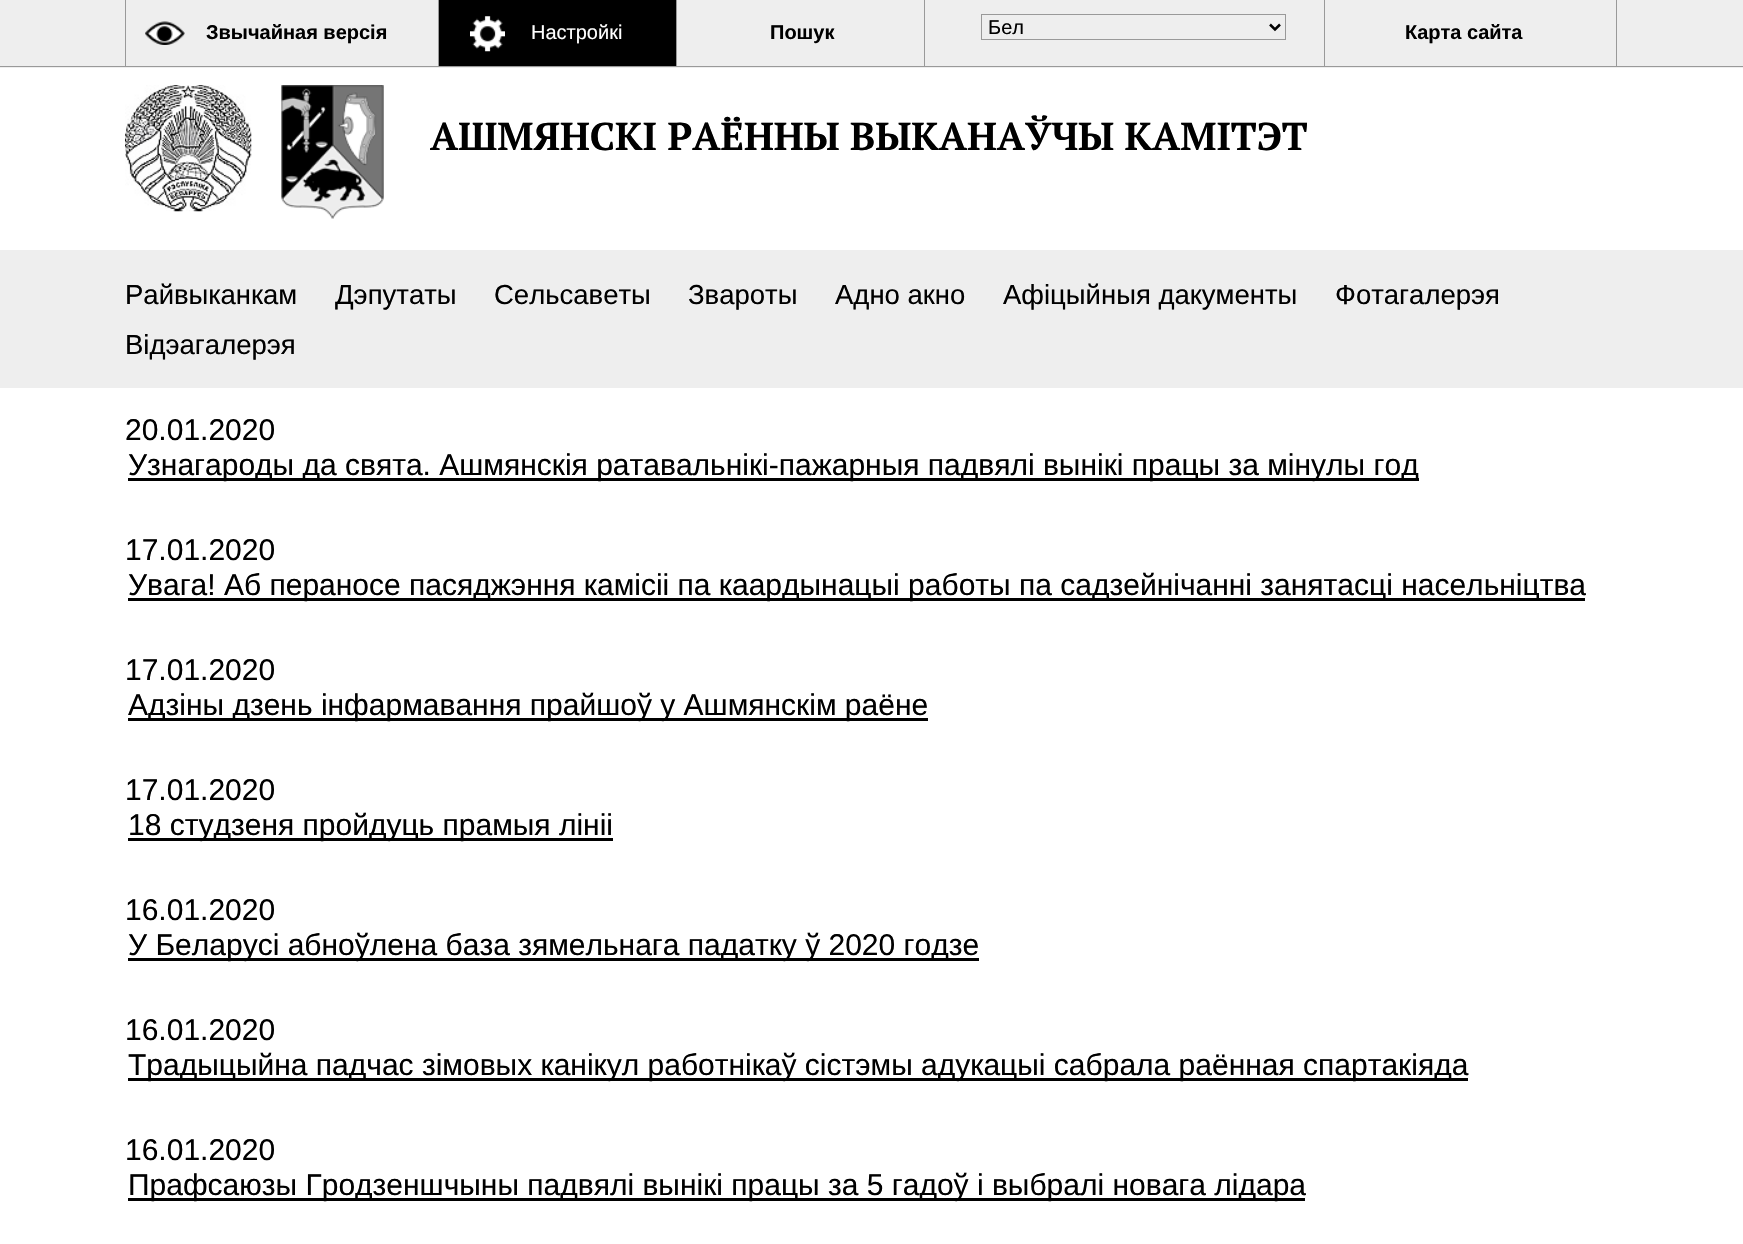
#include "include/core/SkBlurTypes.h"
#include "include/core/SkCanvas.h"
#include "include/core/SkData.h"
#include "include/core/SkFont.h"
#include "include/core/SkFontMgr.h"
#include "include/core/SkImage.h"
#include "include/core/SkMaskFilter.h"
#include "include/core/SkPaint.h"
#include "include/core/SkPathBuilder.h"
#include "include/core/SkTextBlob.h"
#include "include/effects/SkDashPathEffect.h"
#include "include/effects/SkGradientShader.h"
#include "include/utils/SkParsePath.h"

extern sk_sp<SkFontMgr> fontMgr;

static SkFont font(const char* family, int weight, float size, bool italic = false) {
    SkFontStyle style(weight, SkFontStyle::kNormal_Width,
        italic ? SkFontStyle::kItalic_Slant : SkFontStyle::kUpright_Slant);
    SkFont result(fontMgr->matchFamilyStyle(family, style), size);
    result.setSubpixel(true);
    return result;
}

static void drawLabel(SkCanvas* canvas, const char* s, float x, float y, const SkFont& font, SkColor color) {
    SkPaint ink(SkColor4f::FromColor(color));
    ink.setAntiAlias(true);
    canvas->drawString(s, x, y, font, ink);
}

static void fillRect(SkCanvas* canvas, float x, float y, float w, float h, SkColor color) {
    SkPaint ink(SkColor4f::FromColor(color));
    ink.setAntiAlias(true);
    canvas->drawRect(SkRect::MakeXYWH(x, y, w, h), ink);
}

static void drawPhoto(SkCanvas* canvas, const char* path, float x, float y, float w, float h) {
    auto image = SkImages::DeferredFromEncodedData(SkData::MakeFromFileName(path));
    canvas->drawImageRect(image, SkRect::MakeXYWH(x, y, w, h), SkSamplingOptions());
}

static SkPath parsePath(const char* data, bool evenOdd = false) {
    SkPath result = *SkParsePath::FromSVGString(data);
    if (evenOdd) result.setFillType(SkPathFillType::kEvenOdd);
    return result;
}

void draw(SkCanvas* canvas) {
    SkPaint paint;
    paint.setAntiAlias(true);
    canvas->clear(0xFFFFFFFF);
    fillRect(canvas, 0, 0, 1743, 68, 0xFFEEEEEE);
    fillRect(canvas, 0, 66, 1743, 1, 0xFF999999);
    drawPhoto(canvas, "assets/img1.png", 145, 21, 40, 24);
    fillRect(canvas, 125, 0, 1, 66, 0xFF999999);
    SkFont font1 = font("Liberation Sans", 700, 20);
    drawLabel(canvas, "Звычайная версія", 206, 39, font1, 0xFF000000);
    fillRect(canvas, 439, 0, 237, 66, 0xFF000000);
    drawPhoto(canvas, "assets/img2.png", 470, 16, 35, 36);
    fillRect(canvas, 438, 0, 1, 66, 0xFF999999);
    SkFont font2 = font("Liberation Sans", 400, 20);
    drawLabel(canvas, "Настройкі", 531, 39, font2, 0xFFFFFFFF);
    fillRect(canvas, 676, 0, 1, 66, 0xFF999999);
    drawLabel(canvas, "Пошук", 770, 39, font1, 0xFF000000);
    fillRect(canvas, 1324, 0, 1, 66, 0xFF999999);
    fillRect(canvas, 924, 0, 1, 66, 0xFF999999);
    paint.setStroke(true);
    paint.setStrokeWidth(1);
    paint.setColor(0xFF999999);
    canvas->drawRect(SkRect::MakeXYWH(981.5f, 14.5f, 304, 25), paint);
    paint.setStrokeWidth(2.5f);
    paint.setColor(0xFF000000);
    canvas->drawPath(parsePath("M1270 24.5L1275 29.5L1280 24.5"), paint);
    drawLabel(canvas, "Бел", 988, 34, font2, 0xFF000000);
    fillRect(canvas, 1616, 0, 1, 66, 0xFF999999);
    drawLabel(canvas, "Карта сайта", 1405, 39, font1, 0xFF000000);
    drawPhoto(canvas, "assets/img3.png", 125, 85, 127, 127);
    drawPhoto(canvas, "assets/img4.png", 281, 85, 103, 134);
    SkFont font3 = font("PT Serif", 700, 38.75f);
    drawLabel(canvas, "АШМЯНСКI РАЁННЫ ВЫКАНАЎЧЫ КАМІТЭТ", 430, 150, font3, 0xFF000000);
    fillRect(canvas, 0, 250, 1743, 138, 0xFFEEEEEE);
    SkFont font4 = font("Liberation Sans", 400, 27.5f);
    drawLabel(canvas, "Райвыканкам", 125, 304, font4, 0xFF000000);
    drawLabel(canvas, "Дэпутаты", 335, 304, font4, 0xFF000000);
    drawLabel(canvas, "Сельсаветы", 494, 304, font4, 0xFF000000);
    drawLabel(canvas, "Звароты", 688, 304, font4, 0xFF000000);
    drawLabel(canvas, "Адно акно", 835, 304, font4, 0xFF000000);
    drawLabel(canvas, "Афіцыйныя дакументы", 1003, 304, font4, 0xFF000000);
    drawLabel(canvas, "Фотагалерэя", 1335, 304, font4, 0xFF000000);
    drawLabel(canvas, "Відэагалерэя", 125, 354, font4, 0xFF000000);
    SkFont font5 = font("Liberation Sans", 400, 30);
    drawLabel(canvas, "20.01.2020", 125, 440, font5, 0xFF000000);
    fillRect(canvas, 128, 478, 1291, 3, 0xFF000000);
    drawLabel(canvas, "Узнагароды да свята. Ашмянскія ратавальнікі-пажарныя падвялі вынікі працы за мінулы год", 128, 475, font5, 0xFF000000);
    drawLabel(canvas, "17.01.2020", 125, 560, font5, 0xFF000000);
    fillRect(canvas, 128, 598, 1457, 3, 0xFF000000);
    drawLabel(canvas, "Увага! Аб пераносе пасяджэння камісіі па каардынацыі работы па садзейнічанні занятасці насельніцтва", 128, 595, font5, 0xFF000000);
    drawLabel(canvas, "17.01.2020", 125, 680, font5, 0xFF000000);
    fillRect(canvas, 128, 718, 800, 3, 0xFF000000);
    drawLabel(canvas, "Адзіны дзень інфармавання прайшоў у Ашмянскім раёне", 128, 715, font5, 0xFF000000);
    drawLabel(canvas, "17.01.2020", 125, 800, font5, 0xFF000000);
    fillRect(canvas, 128, 838, 485, 3, 0xFF000000);
    drawLabel(canvas, "18 студзеня пройдуць прамыя лініі", 128, 835, font5, 0xFF000000);
    drawLabel(canvas, "16.01.2020", 125, 920, font5, 0xFF000000);
    fillRect(canvas, 128, 958, 851, 3, 0xFF000000);
    drawLabel(canvas, "У Беларусі абноўлена база зямельнага падатку ў 2020 годзе", 128, 955, font5, 0xFF000000);
    drawLabel(canvas, "16.01.2020", 125, 1040, font5, 0xFF000000);
    fillRect(canvas, 128, 1078, 1340, 3, 0xFF000000);
    drawLabel(canvas, "Традыцыйна падчас зімовых канікул работнікаў сістэмы адукацыі сабрала раённая спартакіяда", 128, 1075, font5, 0xFF000000);
    drawLabel(canvas, "16.01.2020", 125, 1160, font5, 0xFF000000);
    fillRect(canvas, 128, 1198, 1177, 3, 0xFF000000);
    drawLabel(canvas, "Прафсаюзы Гродзеншчыны падвялі вынікі працы за 5 гадоў і выбралі новага лідара", 128, 1195, font5, 0xFF000000);
}
